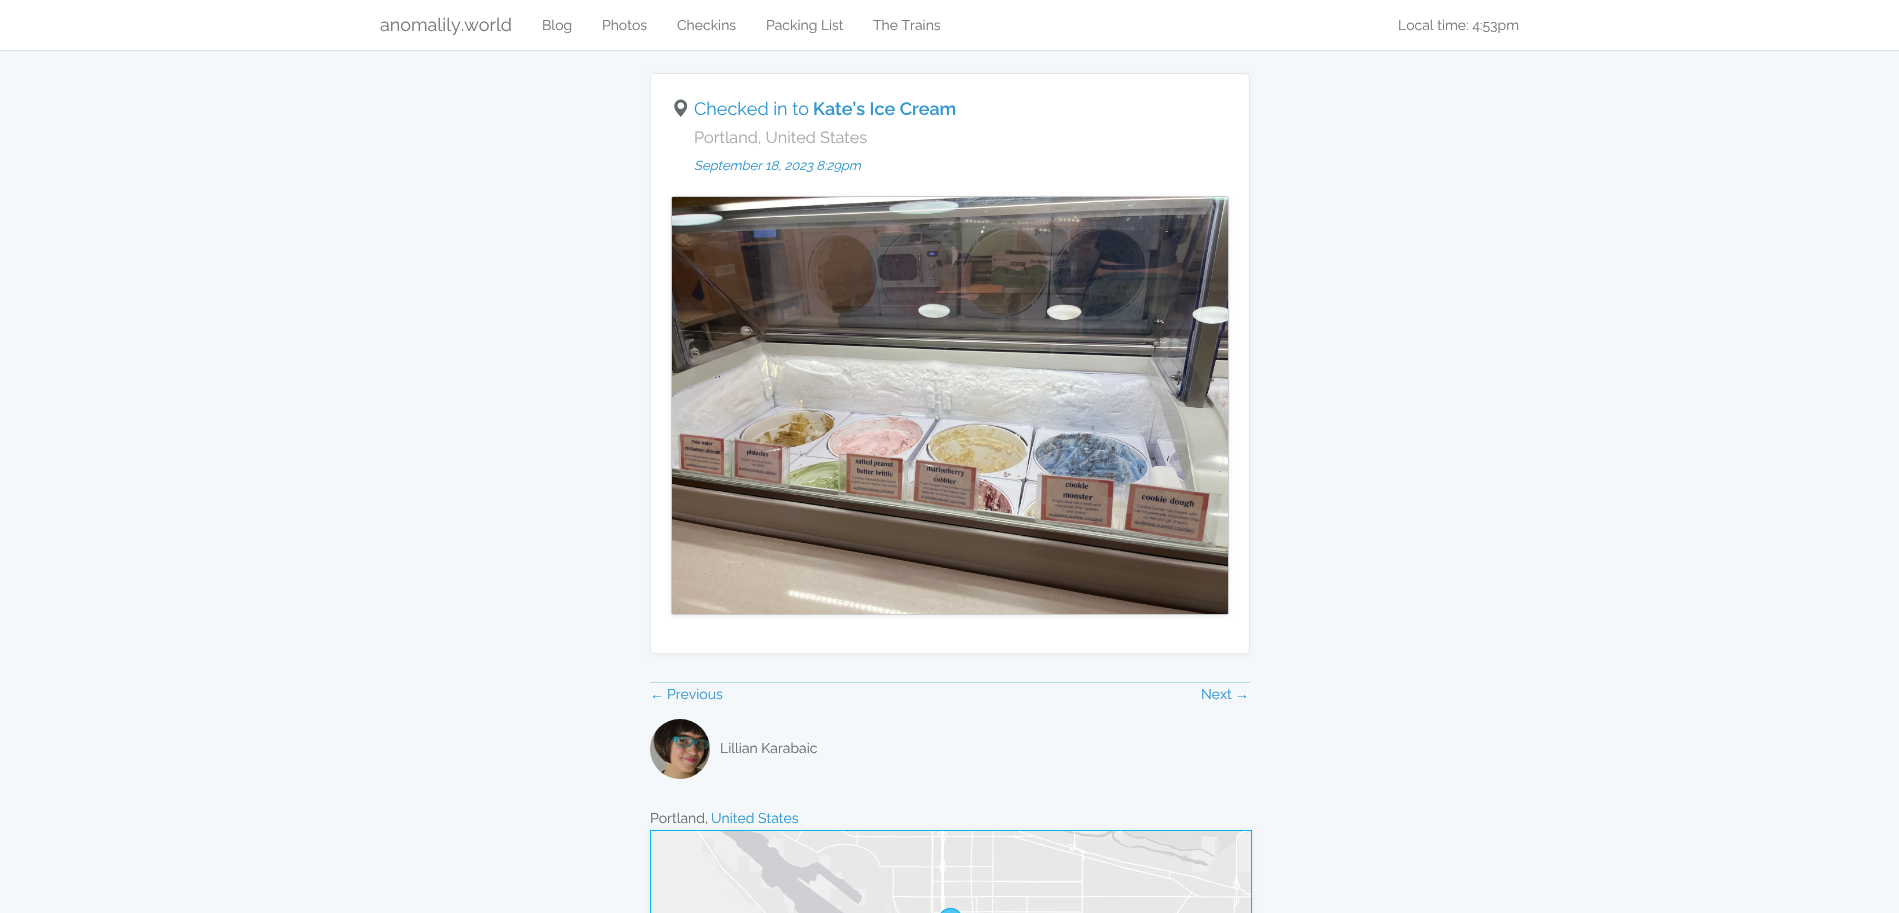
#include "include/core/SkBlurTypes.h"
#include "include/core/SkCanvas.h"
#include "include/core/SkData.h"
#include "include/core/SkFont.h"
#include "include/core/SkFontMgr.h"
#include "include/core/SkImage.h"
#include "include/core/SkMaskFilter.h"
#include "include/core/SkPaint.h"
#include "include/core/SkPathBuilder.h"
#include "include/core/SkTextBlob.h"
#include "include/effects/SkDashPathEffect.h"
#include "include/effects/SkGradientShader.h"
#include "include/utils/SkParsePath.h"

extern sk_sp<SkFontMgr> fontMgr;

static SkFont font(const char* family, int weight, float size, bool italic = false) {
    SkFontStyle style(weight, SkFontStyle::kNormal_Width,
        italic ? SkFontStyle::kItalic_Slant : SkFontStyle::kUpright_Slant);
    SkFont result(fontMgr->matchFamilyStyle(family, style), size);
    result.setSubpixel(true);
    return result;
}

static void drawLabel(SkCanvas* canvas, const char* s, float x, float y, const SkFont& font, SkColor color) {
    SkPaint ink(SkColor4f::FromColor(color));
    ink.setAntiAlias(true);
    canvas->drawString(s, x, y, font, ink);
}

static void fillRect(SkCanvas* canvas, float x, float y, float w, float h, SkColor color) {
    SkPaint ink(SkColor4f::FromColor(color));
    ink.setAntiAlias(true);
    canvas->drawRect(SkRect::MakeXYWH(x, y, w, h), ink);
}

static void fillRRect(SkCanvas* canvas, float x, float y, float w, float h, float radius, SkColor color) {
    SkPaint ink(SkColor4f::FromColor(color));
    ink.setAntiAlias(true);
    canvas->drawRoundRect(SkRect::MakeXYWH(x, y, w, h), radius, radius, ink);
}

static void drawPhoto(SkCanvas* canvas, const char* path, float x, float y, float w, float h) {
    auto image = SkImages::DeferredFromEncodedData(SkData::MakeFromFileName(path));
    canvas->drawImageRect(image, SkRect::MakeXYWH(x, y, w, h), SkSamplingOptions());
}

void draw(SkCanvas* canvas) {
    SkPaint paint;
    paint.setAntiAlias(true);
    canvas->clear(0xFFF5F8FA);
    fillRect(canvas, 0, 0, 1899, 50, 0xFFFFFFFF);
    fillRect(canvas, 0, 50, 1899, 1, 0xFFD3E0E9);
    SkFont font1 = font("Raleway", 400, 18);
    drawLabel(canvas, "anomalily.world", 380, 31, font1, 0xFF777777);
    SkFont font2 = font("Raleway", 400, 14);
    drawLabel(canvas, "Blog", 542, 30, font2, 0xFF777777);
    drawLabel(canvas, "Photos", 602, 30, font2, 0xFF777777);
    drawLabel(canvas, "Checkins", 677, 30, font2, 0xFF777777);
    drawLabel(canvas, "Packing List", 766, 30, font2, 0xFF777777);
    drawLabel(canvas, "The Trains", 873, 30, font2, 0xFF777777);
    drawLabel(canvas, "Local time: 4:53pm", 1398, 30, font2, 0xFF777777);
    paint.setColor(0x0A000000);
    paint.setMaskFilter(SkMaskFilter::MakeBlur(kNormal_SkBlurStyle, 2));
    canvas->drawRoundRect(SkRect::MakeXYWH(650, 74, 600, 581), 4, 4, paint);
    paint.setMaskFilter(nullptr);
    fillRRect(canvas, 650, 73, 600, 581, 4, 0xFFFFFFFF);
    paint.setStroke(true);
    paint.setStrokeWidth(1);
    paint.setColor(0x17000000);
    canvas->drawRoundRect(SkRect::MakeXYWH(650.5f, 73.5f, 599, 580), 3.5f, 3.5f, paint);
    drawPhoto(canvas, "assets/img1.png", 674, 99, 14, 18);
    drawLabel(canvas, "Checked in to", 694, 115, font1, 0xFF3097D1);
    SkFont font3 = font("Raleway", 600, 18);
    drawLabel(canvas, "Kate’s Ice Cream", 813, 115, font3, 0xFF3097D1);
    SkFont font4 = font("Raleway", 400, 16.25f);
    drawLabel(canvas, "Portland, United States", 694, 143, font4, 0xFFAAAAAA);
    SkFont font5 = font("Raleway", 400, 13, true);
    drawLabel(canvas, "September 18, 2023 8:29pm", 694, 170, font5, 0xFF3097D1);
    paint.setStroke(false);
    paint.setColor(0x14000000);
    paint.setMaskFilter(SkMaskFilter::MakeBlur(kNormal_SkBlurStyle, 2));
    canvas->drawRoundRect(SkRect::MakeXYWH(671, 197, 558, 419), 2, 2, paint);
    paint.setMaskFilter(nullptr);
    paint.setStroke(true);
    paint.setColor(0xFFCCCCCC);
    canvas->drawRoundRect(SkRect::MakeXYWH(671.5f, 196.5f, 557, 418), 1.5f, 1.5f, paint);
    drawPhoto(canvas, "assets/img2.png", 672, 197, 556, 417);
    fillRect(canvas, 650, 682, 600, 1, 0xFFB8DCE6);
    SkFont font6 = font("Liberation Sans", 400, 14);
    drawLabel(canvas, "←", 650, 699, font6, 0xFF3097D1);
    drawLabel(canvas, "Previous", 667, 699, font2, 0xFF3097D1);
    drawLabel(canvas, "Next", 1201, 699, font2, 0xFF3097D1);
    drawLabel(canvas, "→", 1235, 699, font6, 0xFF3097D1);
    drawPhoto(canvas, "assets/img3.png", 650, 719, 60, 60);
    drawLabel(canvas, "Lillian Karabaic", 720, 753, font2, 0xFF636B6F);
    drawLabel(canvas, "Portland,", 650, 823, font2, 0xFF636B6F);
    drawLabel(canvas, "United States", 711, 823, font2, 0xFF3097D1);
    paint.setStroke(false);
    paint.setColor(0x14000000);
    paint.setMaskFilter(SkMaskFilter::MakeBlur(kNormal_SkBlurStyle, 2));
    canvas->drawRect(SkRect::MakeXYWH(650, 831, 602, 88), paint);
    paint.setMaskFilter(nullptr);
    paint.setStroke(true);
    paint.setColor(0xFF03B9EC);
    canvas->drawRect(SkRect::MakeXYWH(650.5f, 830.5f, 601, 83), paint);
    drawPhoto(canvas, "assets/img4.png", 651, 831, 600, 82);
}
